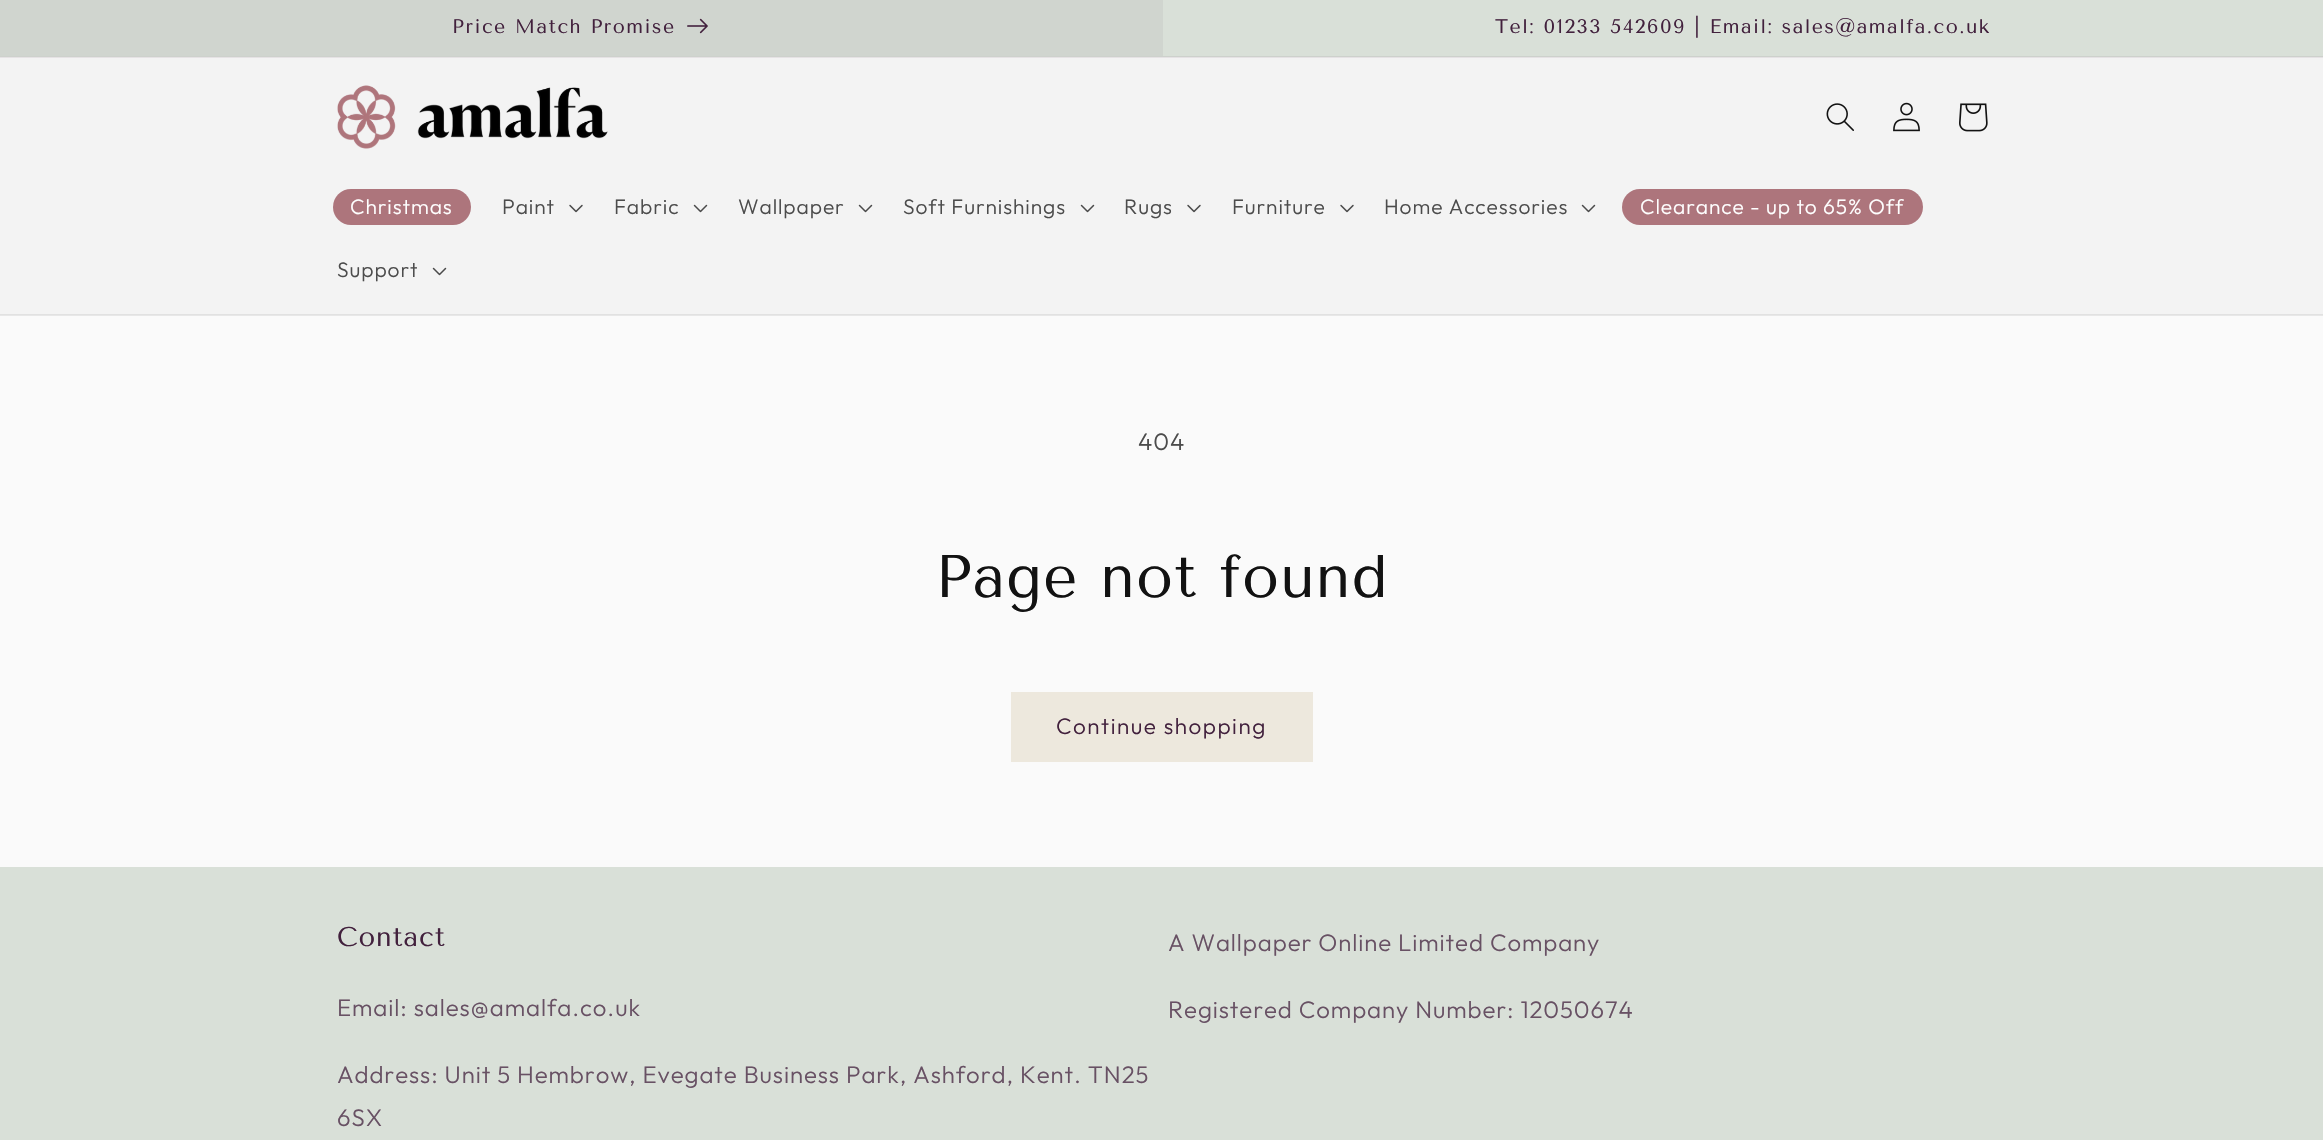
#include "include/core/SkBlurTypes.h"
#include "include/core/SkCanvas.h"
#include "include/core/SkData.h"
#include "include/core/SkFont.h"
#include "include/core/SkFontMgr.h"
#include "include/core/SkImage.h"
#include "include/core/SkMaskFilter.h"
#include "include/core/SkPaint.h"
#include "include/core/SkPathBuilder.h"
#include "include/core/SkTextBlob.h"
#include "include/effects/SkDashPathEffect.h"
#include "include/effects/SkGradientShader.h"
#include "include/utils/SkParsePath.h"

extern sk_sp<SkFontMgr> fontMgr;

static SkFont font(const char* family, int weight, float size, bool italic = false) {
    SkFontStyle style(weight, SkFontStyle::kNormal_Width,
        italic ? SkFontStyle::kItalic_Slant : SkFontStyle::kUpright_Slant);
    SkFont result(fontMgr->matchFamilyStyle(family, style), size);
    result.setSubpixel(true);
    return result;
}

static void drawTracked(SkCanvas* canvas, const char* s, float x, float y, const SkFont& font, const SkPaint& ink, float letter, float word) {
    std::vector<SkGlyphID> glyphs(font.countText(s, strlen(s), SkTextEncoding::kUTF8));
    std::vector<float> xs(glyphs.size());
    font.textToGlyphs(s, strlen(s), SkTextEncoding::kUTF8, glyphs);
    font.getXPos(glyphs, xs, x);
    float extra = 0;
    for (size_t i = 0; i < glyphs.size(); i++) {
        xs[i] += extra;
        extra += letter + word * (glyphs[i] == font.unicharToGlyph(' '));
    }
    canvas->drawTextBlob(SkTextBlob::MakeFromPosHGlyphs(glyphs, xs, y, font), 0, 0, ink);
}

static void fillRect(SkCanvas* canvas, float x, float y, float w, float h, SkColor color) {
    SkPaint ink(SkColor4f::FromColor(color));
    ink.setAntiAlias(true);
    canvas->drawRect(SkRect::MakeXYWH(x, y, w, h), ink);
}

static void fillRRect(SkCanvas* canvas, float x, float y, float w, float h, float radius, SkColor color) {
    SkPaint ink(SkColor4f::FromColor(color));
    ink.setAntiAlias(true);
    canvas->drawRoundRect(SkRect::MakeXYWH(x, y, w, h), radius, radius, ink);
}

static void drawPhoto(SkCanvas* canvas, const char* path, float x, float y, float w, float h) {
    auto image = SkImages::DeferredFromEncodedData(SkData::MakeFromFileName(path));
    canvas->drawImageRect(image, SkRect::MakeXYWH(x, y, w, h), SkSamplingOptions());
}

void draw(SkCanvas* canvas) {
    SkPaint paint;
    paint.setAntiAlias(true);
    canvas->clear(0xFFFAFAFA);
    fillRect(canvas, 0, 315, 2323, 1, 0xFFE7E7E7);
    fillRect(canvas, 0, 56, 2323, 1, 0xFFCDD1CC);
    fillRect(canvas, 0, 0, 1163, 56, 0xFFD0D5CF);
    SkFont font1 = font("Tenor Sans", 400, 19.5f);
    paint.setColor(0xFF42213D);
    drawTracked(canvas, "Price Match Promise", 452, 33, font1, paint, 1.5f, 0);
    drawPhoto(canvas, "assets/img1.png", 687, 18, 21, 16);
    fillRect(canvas, 1163, 0, 1160, 56, 0xFFD9E0D8);
    drawTracked(canvas, "Tel: 01233 542609 | Email: sales@amalfa.co.uk", 1495, 33, font1, paint, 1.5f, 0);
    fillRect(canvas, 0, 58, 2323, 256, 0xFFF3F3F3);
    fillRect(canvas, 0, 57, 2323, 1, 0xFFE5E2E4);
    fillRect(canvas, 0, 314, 2323, 1, 0xFFE1E1E1);
    drawPhoto(canvas, "assets/img2.png", 337, 85, 271, 64);
    drawPhoto(canvas, "assets/img3.png", 1826, 103, 28, 28);
    drawPhoto(canvas, "assets/img4.png", 1893, 102, 27, 30);
    drawPhoto(canvas, "assets/img5.png", 1959, 103, 29, 29);
    fillRRect(canvas, 333, 189, 138, 36, 18, 0xFFAD757C);
    SkFont font2 = font("Outfit", 300, 21);
    paint.setColor(0xFFFFFFFF);
    drawTracked(canvas, "Christmas", 350, 214, font2, paint, 0.9f, 0);
    paint.setColor(0xFF4C4C4C);
    drawTracked(canvas, "Paint", 502, 214, font2, paint, 0.9f, 0);
    drawPhoto(canvas, "assets/img6.png", 569, 204, 14, 9);
    drawTracked(canvas, "Fabric", 614, 214, font2, paint, 0.9f, 0);
    drawPhoto(canvas, "assets/img7.png", 693, 204, 15, 9);
    drawTracked(canvas, "Wallpaper", 738, 214, font2, paint, 0.9f, 0);
    drawPhoto(canvas, "assets/img7.png", 858, 204, 15, 9);
    drawTracked(canvas, "Soft Furnishings", 903, 214, font2, paint, 0.9f, 0);
    drawPhoto(canvas, "assets/img7.png", 1080, 204, 15, 9);
    drawTracked(canvas, "Rugs", 1124, 214, font2, paint, 0.9f, 0);
    drawPhoto(canvas, "assets/img6.png", 1187, 204, 14, 9);
    drawTracked(canvas, "Furniture", 1232, 214, font2, paint, 0.9f, 0);
    drawPhoto(canvas, "assets/img6.png", 1340, 204, 14, 9);
    drawTracked(canvas, "Home Accessories", 1384, 214, font2, paint, 0.9f, 0);
    drawPhoto(canvas, "assets/img7.png", 1581, 204, 15, 9);
    fillRRect(canvas, 1622, 189, 301, 36, 18, 0xFFAD757C);
    paint.setColor(0xFFFFFFFF);
    drawTracked(canvas, "Clearance - up to 65% Off", 1640, 214, font2, paint, 0.9f, 0);
    paint.setColor(0xFF4C4C4C);
    drawTracked(canvas, "Support", 337, 277, font2, paint, 0.9f, 0);
    drawPhoto(canvas, "assets/img7.png", 432, 267, 15, 9);
    SkFont font3 = font("Outfit", 300, 24);
    drawTracked(canvas, "404", 1138, 450, font3, paint, 0.9f, 0);
    SkFont font4 = font("Tenor Sans", 400, 60);
    paint.setColor(0xFF121212);
    drawTracked(canvas, "Page not found", 935, 597, font4, paint, 0.9f, 0);
    fillRect(canvas, 1011, 692, 302, 70, 0xFFEDE8DD);
    SkFont font5 = font("Outfit", 300, 22.5f);
    paint.setColor(0xFF42213D);
    drawTracked(canvas, "Continue shopping", 1056, 734, font5, paint, 1.5f, 0);
    fillRect(canvas, 0, 867, 2323, 273, 0xFFD9E0D8);
    SkFont font6 = font("Tenor Sans", 400, 27);
    drawTracked(canvas, "Contact", 337, 946, font6, paint, 0.9f, 0);
    paint.setColor(0xFF685164);
    drawTracked(canvas, "Email: sales@amalfa.co.uk", 337, 1016, font3, paint, 0.9f, 0);
    drawTracked(canvas, "Address: Unit 5 Hembrow, Evegate Business Park, Ashford, Kent. TN25", 337, 1083, font3, paint, 0.9f, 0);
    drawTracked(canvas, "6SX", 337, 1126, font3, paint, 0.9f, 0);
    drawTracked(canvas, "A Wallpaper Online Limited Company", 1168, 951, font3, paint, 0.9f, 0);
    drawTracked(canvas, "Registered Company Number: 12050674", 1168, 1018, font3, paint, 0.9f, 0);
}
